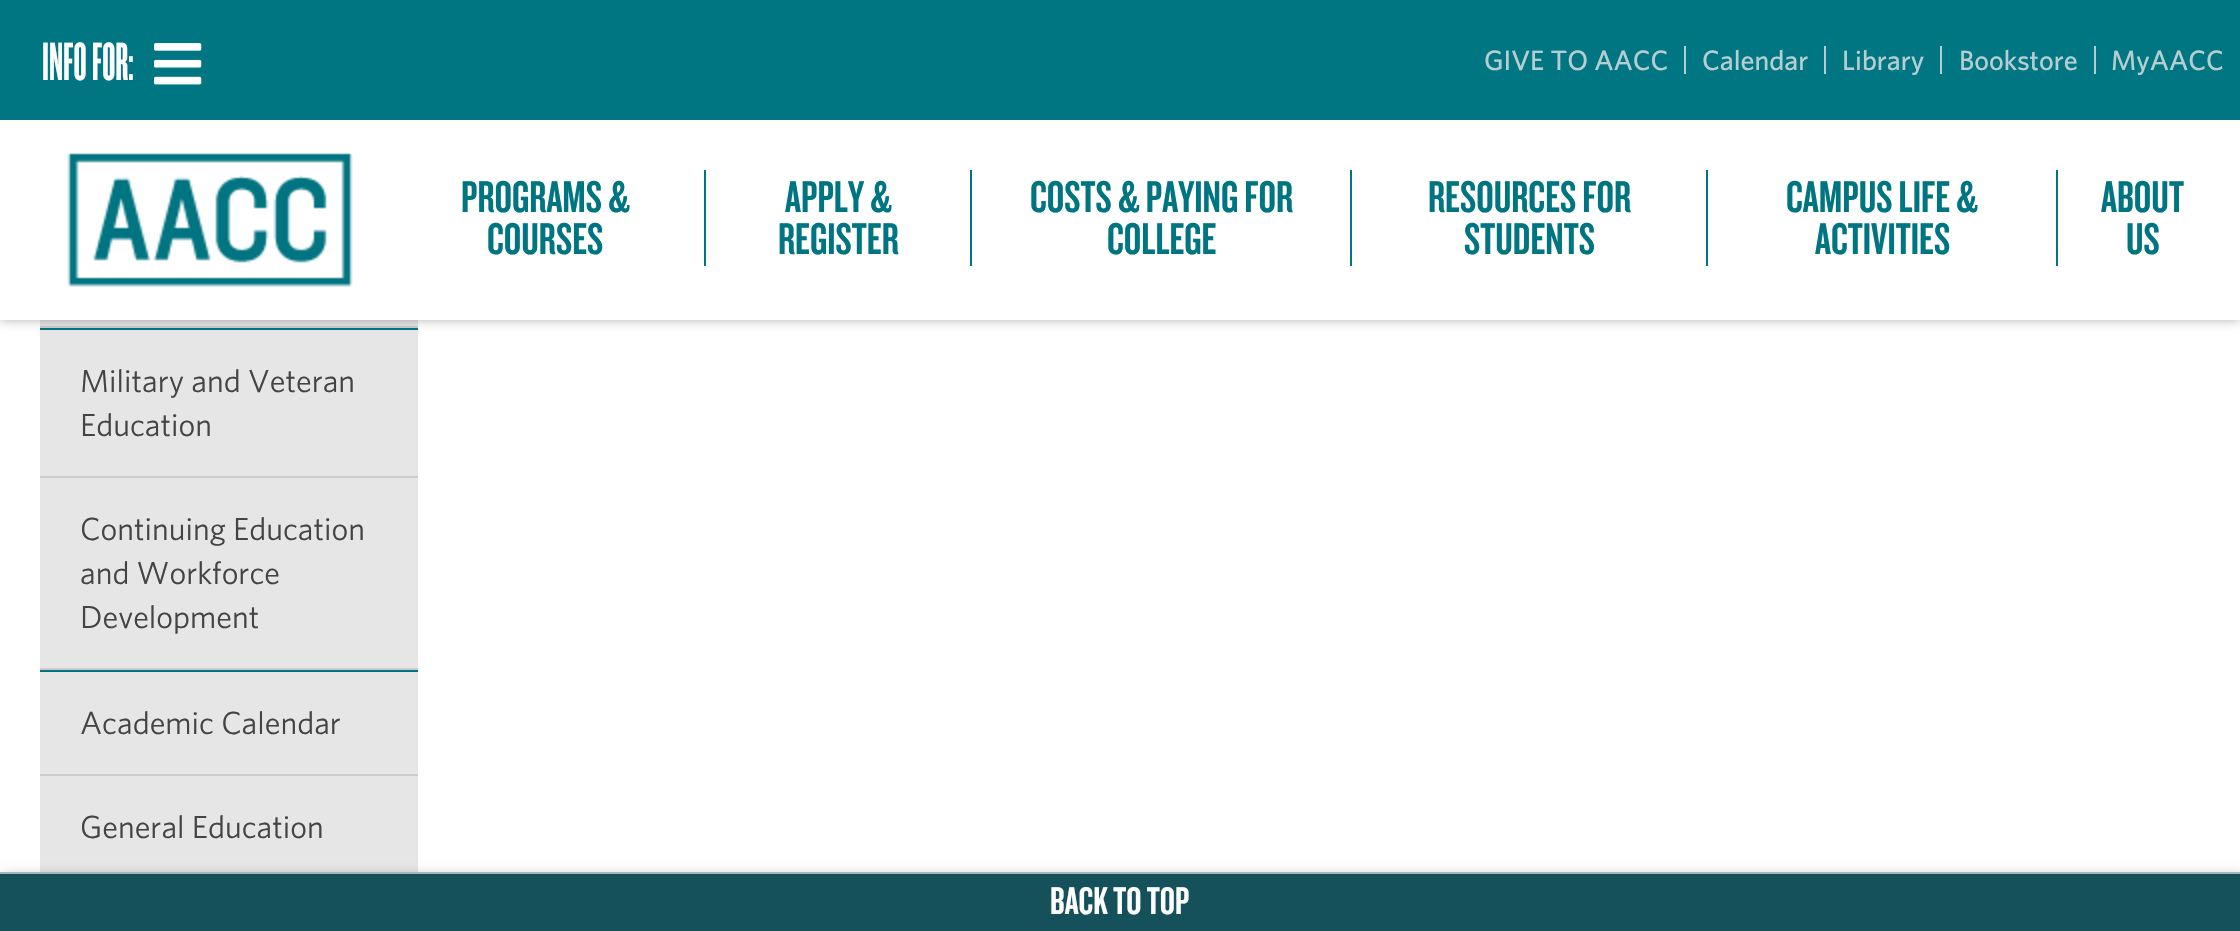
#include "include/core/SkBlurTypes.h"
#include "include/core/SkCanvas.h"
#include "include/core/SkData.h"
#include "include/core/SkFont.h"
#include "include/core/SkFontMgr.h"
#include "include/core/SkImage.h"
#include "include/core/SkMaskFilter.h"
#include "include/core/SkPaint.h"
#include "include/core/SkPathBuilder.h"
#include "include/core/SkTextBlob.h"
#include "include/effects/SkDashPathEffect.h"
#include "include/effects/SkGradientShader.h"
#include "include/utils/SkParsePath.h"

extern sk_sp<SkFontMgr> fontMgr;

static SkFont font(const char* family, int weight, float size, bool italic = false) {
    SkFontStyle style(weight, SkFontStyle::kNormal_Width,
        italic ? SkFontStyle::kItalic_Slant : SkFontStyle::kUpright_Slant);
    SkFont result(fontMgr->matchFamilyStyle(family, style), size);
    result.setSubpixel(true);
    return result;
}

static void drawLabel(SkCanvas* canvas, const char* s, float x, float y, const SkFont& font, SkColor color) {
    SkPaint ink(SkColor4f::FromColor(color));
    ink.setAntiAlias(true);
    canvas->drawString(s, x, y, font, ink);
}

static void fillRect(SkCanvas* canvas, float x, float y, float w, float h, SkColor color) {
    SkPaint ink(SkColor4f::FromColor(color));
    ink.setAntiAlias(true);
    canvas->drawRect(SkRect::MakeXYWH(x, y, w, h), ink);
}

static void drawPhoto(SkCanvas* canvas, const char* path, float x, float y, float w, float h) {
    auto image = SkImages::DeferredFromEncodedData(SkData::MakeFromFileName(path));
    canvas->drawImageRect(image, SkRect::MakeXYWH(x, y, w, h), SkSamplingOptions());
}

void draw(SkCanvas* canvas) {
    SkPaint paint;
    paint.setAntiAlias(true);
    canvas->clear(0xFFFFFFFF);
    fillRect(canvas, 40, 320, 378, 6, 0xFFE6E6E6);
    fillRect(canvas, 40, 326, 378, 2, 0xFFCCCCCC);
    fillRect(canvas, 40, 328, 378, 2, 0xFF007582);
    fillRect(canvas, 40, 330, 378, 146, 0xFFE6E6E6);
    paint.setColor(0x4D000000);
    paint.setMaskFilter(SkMaskFilter::MakeBlur(kNormal_SkBlurStyle, 5));
    canvas->drawRect(SkRect::MakeXYWH(0, 0, 2240, 320), paint);
    paint.setMaskFilter(nullptr);
    fillRect(canvas, 0, 0, 2240, 120, 0xFF007682);
    SkFont font1 = font("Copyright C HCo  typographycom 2", 300, 56);
    drawLabel(canvas, "INFO FOR:", 42, 80, font1, 0xFFFFFFFF);
    drawPhoto(canvas, "assets/img1.png", 154, 43, 48, 42);
    SkFont font2 = font("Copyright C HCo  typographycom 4", 300, 28);
    drawLabel(canvas, "GIVE TO AACC", 1484, 70, font2, 0xFFB6CED1);
    fillRect(canvas, 1684, 46, 2, 28, 0xFFB6CED1);
    drawLabel(canvas, "Calendar", 1702, 70, font2, 0xFFB6CED1);
    fillRect(canvas, 1824, 46, 2, 28, 0xFFB6CED1);
    drawLabel(canvas, "Library", 1842, 70, font2, 0xFFB6CED1);
    fillRect(canvas, 1940, 46, 2, 28, 0xFFB6CED1);
    drawLabel(canvas, "Bookstore", 1959, 70, font2, 0xFFB6CED1);
    fillRect(canvas, 2094, 46, 2, 28, 0xFFB6CED1);
    drawLabel(canvas, "MyAACC", 2111, 70, font2, 0xFFB6CED1);
    fillRect(canvas, 0, 120, 2240, 200, 0xFFFFFFFF);
    drawPhoto(canvas, "assets/img2.png", 67, 153, 286, 134);
    SkFont font3 = font("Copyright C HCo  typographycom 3", 300, 46);
    drawLabel(canvas, "PROGRAMS &", 461, 212, font3, 0xFF007582);
    drawLabel(canvas, "COURSES", 487, 254, font3, 0xFF007582);
    fillRect(canvas, 704, 170, 2, 96, 0xFF007582);
    drawLabel(canvas, "APPLY &", 785, 212, font3, 0xFF007582);
    drawLabel(canvas, "REGISTER", 778, 254, font3, 0xFF007582);
    fillRect(canvas, 970, 170, 2, 96, 0xFF007582);
    drawLabel(canvas, "COSTS & PAYING FOR", 1030, 212, font3, 0xFF007582);
    drawLabel(canvas, "COLLEGE", 1107, 254, font3, 0xFF007582);
    fillRect(canvas, 1350, 170, 2, 96, 0xFF007582);
    drawLabel(canvas, "RESOURCES FOR", 1428, 212, font3, 0xFF007582);
    drawLabel(canvas, "STUDENTS", 1464, 254, font3, 0xFF007582);
    fillRect(canvas, 1706, 170, 2, 96, 0xFF007582);
    drawLabel(canvas, "CAMPUS LIFE &", 1786, 212, font3, 0xFF007582);
    drawLabel(canvas, "ACTIVITIES", 1815, 254, font3, 0xFF007582);
    fillRect(canvas, 2056, 170, 2, 96, 0xFF007582);
    drawLabel(canvas, "ABOUT", 2101, 212, font3, 0xFF007582);
    drawLabel(canvas, "US", 2126, 254, font3, 0xFF007582);
    fillRect(canvas, 40, 776, 378, 96, 0xFFE6E6E6);
    paint.setMaskFilter(SkMaskFilter::MakeBlur(kNormal_SkBlurStyle, 6));
    canvas->drawRect(SkRect::MakeXYWH(4, 876, 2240, 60), paint);
    paint.setMaskFilter(nullptr);
    fillRect(canvas, 0, 874, 2240, 57, 0xFF15515A);
    fillRect(canvas, 0, 872, 2240, 2, 0xFFA1B9BD);
    SkFont font4 = font("Copyright C HCo  typographycom 3", 300, 40);
    drawLabel(canvas, "BACK TO TOP", 1050, 914, font4, 0xFFFFFFFF);
    fillRect(canvas, 40, 476, 378, 2, 0xFFCCCCCC);
    SkFont font5 = font("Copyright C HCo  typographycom", 300, 32);
    drawLabel(canvas, "Military and Veteran", 80, 392, font5, 0xFF444444);
    drawLabel(canvas, "Education", 80, 436, font5, 0xFF444444);
    fillRect(canvas, 40, 478, 378, 190, 0xFFE6E6E6);
    fillRect(canvas, 40, 668, 378, 2, 0xFFCCCCCC);
    drawLabel(canvas, "Continuing Education", 80, 540, font5, 0xFF444444);
    drawLabel(canvas, "and Workforce", 80, 584, font5, 0xFF444444);
    drawLabel(canvas, "Development", 80, 628, font5, 0xFF444444);
    fillRect(canvas, 40, 670, 378, 2, 0xFF007582);
    fillRect(canvas, 40, 672, 378, 102, 0xFFE6E6E6);
    fillRect(canvas, 40, 774, 378, 2, 0xFFCCCCCC);
    drawLabel(canvas, "Academic Calendar", 80, 734, font5, 0xFF444444);
    drawLabel(canvas, "General Education", 80, 838, font5, 0xFF444444);
}
